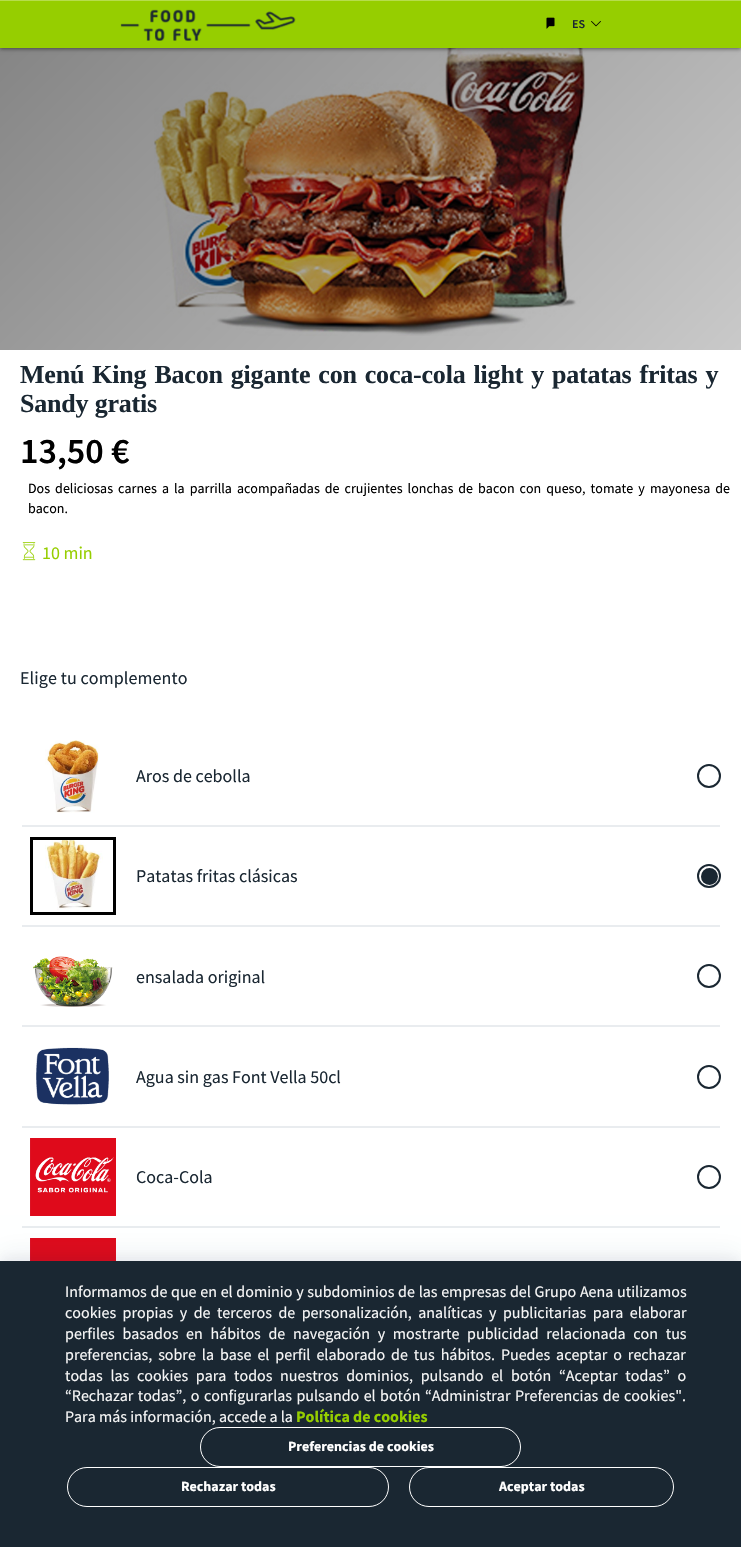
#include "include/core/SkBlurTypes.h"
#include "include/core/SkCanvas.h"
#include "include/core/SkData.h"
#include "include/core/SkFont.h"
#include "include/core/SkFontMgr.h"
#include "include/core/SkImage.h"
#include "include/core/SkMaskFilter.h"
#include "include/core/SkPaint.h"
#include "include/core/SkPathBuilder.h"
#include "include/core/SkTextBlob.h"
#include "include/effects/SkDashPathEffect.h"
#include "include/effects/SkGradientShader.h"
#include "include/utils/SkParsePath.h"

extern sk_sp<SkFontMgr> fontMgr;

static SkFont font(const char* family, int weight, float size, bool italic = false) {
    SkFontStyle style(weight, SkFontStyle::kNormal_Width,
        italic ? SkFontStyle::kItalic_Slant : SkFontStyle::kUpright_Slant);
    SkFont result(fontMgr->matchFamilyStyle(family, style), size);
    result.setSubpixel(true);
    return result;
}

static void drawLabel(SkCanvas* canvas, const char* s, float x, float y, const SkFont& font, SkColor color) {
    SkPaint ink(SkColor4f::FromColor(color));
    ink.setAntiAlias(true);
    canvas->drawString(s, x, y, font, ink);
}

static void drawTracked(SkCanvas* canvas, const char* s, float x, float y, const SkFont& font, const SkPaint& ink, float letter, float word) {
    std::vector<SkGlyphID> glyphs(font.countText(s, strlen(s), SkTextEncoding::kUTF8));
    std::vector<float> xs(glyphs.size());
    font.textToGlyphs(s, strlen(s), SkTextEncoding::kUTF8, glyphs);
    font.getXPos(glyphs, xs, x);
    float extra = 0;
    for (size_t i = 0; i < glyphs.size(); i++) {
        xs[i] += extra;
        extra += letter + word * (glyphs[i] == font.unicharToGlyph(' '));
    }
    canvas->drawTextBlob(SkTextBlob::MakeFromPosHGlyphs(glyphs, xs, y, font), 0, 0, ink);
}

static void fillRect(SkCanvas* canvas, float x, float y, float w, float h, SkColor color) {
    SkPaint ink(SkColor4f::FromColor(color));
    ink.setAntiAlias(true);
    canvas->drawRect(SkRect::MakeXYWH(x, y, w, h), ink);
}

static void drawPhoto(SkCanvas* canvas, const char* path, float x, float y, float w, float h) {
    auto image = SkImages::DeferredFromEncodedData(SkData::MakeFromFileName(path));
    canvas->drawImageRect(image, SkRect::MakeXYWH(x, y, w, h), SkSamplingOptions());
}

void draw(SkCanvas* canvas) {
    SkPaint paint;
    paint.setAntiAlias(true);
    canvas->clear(0xFFFFFFFF);
    drawPhoto(canvas, "assets/img4.png", 154, 48, 431, 288);
    {
        const SkColor colors[] = {0x7D000000, 0x36000000};
        const float stops[] = {0, 1};
        const SkPoint ends[] = {{98, -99}, {642, 448}};
        paint.setShader(SkGradientShader::MakeLinear(ends, colors, stops, 2, SkTileMode::kClamp));
        paint.setAlpha(255);
    }
    canvas->drawRect(SkRect::MakeXYWH(0, 48, 741, 302), paint);
    paint.setShader(nullptr);
    paint.setColor(0x80000000);
    paint.setMaskFilter(SkMaskFilter::MakeBlur(kNormal_SkBlurStyle, 2));
    canvas->drawRect(SkRect::MakeXYWH(0, 1, 741, 48), paint);
    paint.setMaskFilter(nullptr);
    fillRect(canvas, 0, 1, 741, 47, 0xFF96CE00);
    fillRect(canvas, 0, 0, 741, 1, 0xFFB6DD4D);
    drawPhoto(canvas, "assets/img1.png", 120, 9, 176, 32);
    drawPhoto(canvas, "assets/img2.png", 546, 17, 9, 12);
    SkFont font1 = font("Source Sans Pro", 600, 12);
    drawLabel(canvas, "ES", 572, 28, font1, 0xFF1A2732);
    drawPhoto(canvas, "assets/img3.png", 591, 21, 10, 6);
    SkFont font2 = font("Liberation Serif", 700, 26);
    paint.setColor(0xFF1A2732);
    drawTracked(canvas, "Menú King Bacon gigante con coca-cola light y patatas fritas y", 20, 383, font2, paint, -0.2f, 1.75f);
    drawTracked(canvas, "Sandy gratis", 20, 412, font2, paint, -0.2f, 0);
    SkFont font3 = font("Source Sans Pro", 600, 36);
    drawLabel(canvas, "13,50 €", 20, 463, font3, 0xFF000000);
    SkFont font4 = font("Source Sans Pro", 400, 14);
    paint.setColor(0xFF000000);
    drawTracked(canvas, "Dos deliciosas carnes a la parrilla acompañadas de crujientes lonchas de bacon con queso, tomate y mayonesa de", 28, 493, font4, paint, 0, 2.25f);
    drawLabel(canvas, "bacon.", 28, 513, font4, 0xFF000000);
    drawPhoto(canvas, "assets/img5.png", 22, 542, 14, 19);
    SkFont font5 = font("Source Sans Pro", 400, 18);
    drawLabel(canvas, "10 min", 42, 559, font5, 0xFF96CE00);
    paint.setColor(0xFF1A2732);
    drawTracked(canvas, "Elige tu complemento", 20, 684, font5, paint, 0.1f, 0);
    fillRect(canvas, 22, 825, 698, 2, 0xFFE9ECEF);
    drawPhoto(canvas, "assets/img6.png", 45, 740, 55, 73);
    drawLabel(canvas, "Aros de cebolla", 136, 782, font5, 0xFF1A2732);
    paint.setStroke(true);
    paint.setStrokeWidth(2);
    canvas->drawCircle(709, 776, 11, paint);
    fillRect(canvas, 22, 925, 698, 2, 0xFFE9ECEF);
    drawPhoto(canvas, "assets/img7.png", 45, 840, 58, 70);
    paint.setStrokeWidth(3);
    paint.setColor(0xFF000000);
    canvas->drawRect(SkRect::MakeXYWH(31.5f, 838.5f, 83, 75), paint);
    drawLabel(canvas, "Patatas fritas clásicas", 136, 882, font5, 0xFF1A2732);
    paint.setStrokeWidth(2);
    paint.setColor(0xFF1A2732);
    canvas->drawCircle(709, 876, 11, paint);
    paint.setStroke(false);
    canvas->drawCircle(709.5f, 876.5f, 8.5f, paint);
    fillRect(canvas, 22, 1025, 698, 2, 0xFFE9ECEF);
    drawPhoto(canvas, "assets/img8.png", 33, 956, 80, 51);
    drawLabel(canvas, "ensalada original", 136, 983, font5, 0xFF1A2732);
    paint.setStroke(true);
    canvas->drawCircle(709, 976, 11, paint);
    fillRect(canvas, 22, 1126, 698, 2, 0xFFE9ECEF);
    drawPhoto(canvas, "assets/img9.png", 36, 1047, 73, 58);
    drawLabel(canvas, "Agua sin gas Font Vella 50cl", 136, 1083, font5, 0xFF1A2732);
    canvas->drawCircle(709, 1077, 11, paint);
    fillRect(canvas, 22, 1226, 698, 2, 0xFFE9ECEF);
    drawPhoto(canvas, "assets/img10.png", 30, 1138, 86, 78);
    drawLabel(canvas, "Coca-Cola", 136, 1183, font5, 0xFF1A2732);
    canvas->drawCircle(709, 1177, 11, paint);
    drawPhoto(canvas, "assets/img11.png", 30, 1238, 86, 23);
    paint.setStroke(false);
    paint.setColor(0x0D010F32);
    paint.setMaskFilter(SkMaskFilter::MakeBlur(kNormal_SkBlurStyle, 12));
    canvas->drawRect(SkRect::MakeXYWH(0, 1251, 741, 286), paint);
    paint.setMaskFilter(nullptr);
    paint.setMaskFilter(SkMaskFilter::MakeBlur(kNormal_SkBlurStyle, 5));
    canvas->drawRect(SkRect::MakeXYWH(0, 1257, 741, 286), paint);
    paint.setMaskFilter(nullptr);
    fillRect(canvas, 0, 1261, 741, 286, 0xFF1A2732);
    SkFont font6 = font("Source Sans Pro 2", 400, 16);
    paint.setColor(0xFFF6F6F6);
    drawTracked(canvas, "Informamos de que en el dominio y subdominios de las empresas del Grupo Aena utilizamos", 65, 1297, font6, paint, 0, 0.5f);
    drawTracked(canvas, "cookies propias y de terceros de personalización, analíticas y publicitarias para elaborar", 65, 1318, font6, paint, 0, 3.25f);
    drawTracked(canvas, "perfiles basados en hábitos de navegación y mostrarte publicidad relacionada con tus", 65, 1339, font6, paint, 0, 4.5f);
    drawTracked(canvas, "preferencias, sobre la base el perfil elaborado de tus hábitos. Puedes aceptar o rechazar", 65, 1360, font6, paint, 0, 2.75f);
    drawTracked(canvas, "todas las cookies para todos nuestros dominios, pulsando el botón “Aceptar todas” o", 65, 1381, font6, paint, 0, 4.5f);
    drawTracked(canvas, "“Rechazar todas”, o configurarlas pulsando el botón “Administrar Preferencias de cookies\"", 65, 1401, font6, paint, 0, 1.25f);
    drawLabel(canvas, ".", 682, 1401, font6, 0xFFF6F6F6);
    drawLabel(canvas, "Para más información, accede a la", 65, 1422, font6, 0xFFF6F6F6);
    SkFont font7 = font("Source Sans Pro", 700, 16);
    drawLabel(canvas, "Política de cookies", 296, 1422, font7, 0xFF96CE00);
    paint.setStroke(true);
    paint.setStrokeWidth(1);
    paint.setColor(0xFFFFFFFF);
    canvas->drawRoundRect(SkRect::MakeXYWH(200.5f, 1427.5f, 320, 39), 19.5f, 19.5f, paint);
    SkFont font8 = font("Source Sans Pro", 700, 14);
    drawLabel(canvas, "Preferencias de cookies", 288, 1451, font8, 0xFFFFFFFF);
    canvas->drawRoundRect(SkRect::MakeXYWH(67.5f, 1467.5f, 321, 39), 19.5f, 19.5f, paint);
    drawLabel(canvas, "Rechazar todas", 181, 1491, font8, 0xFFFFFFFF);
    canvas->drawRoundRect(SkRect::MakeXYWH(409.5f, 1467.5f, 264, 39), 19.5f, 19.5f, paint);
    drawLabel(canvas, "Aceptar todas", 499, 1491, font8, 0xFFFFFFFF);
}
